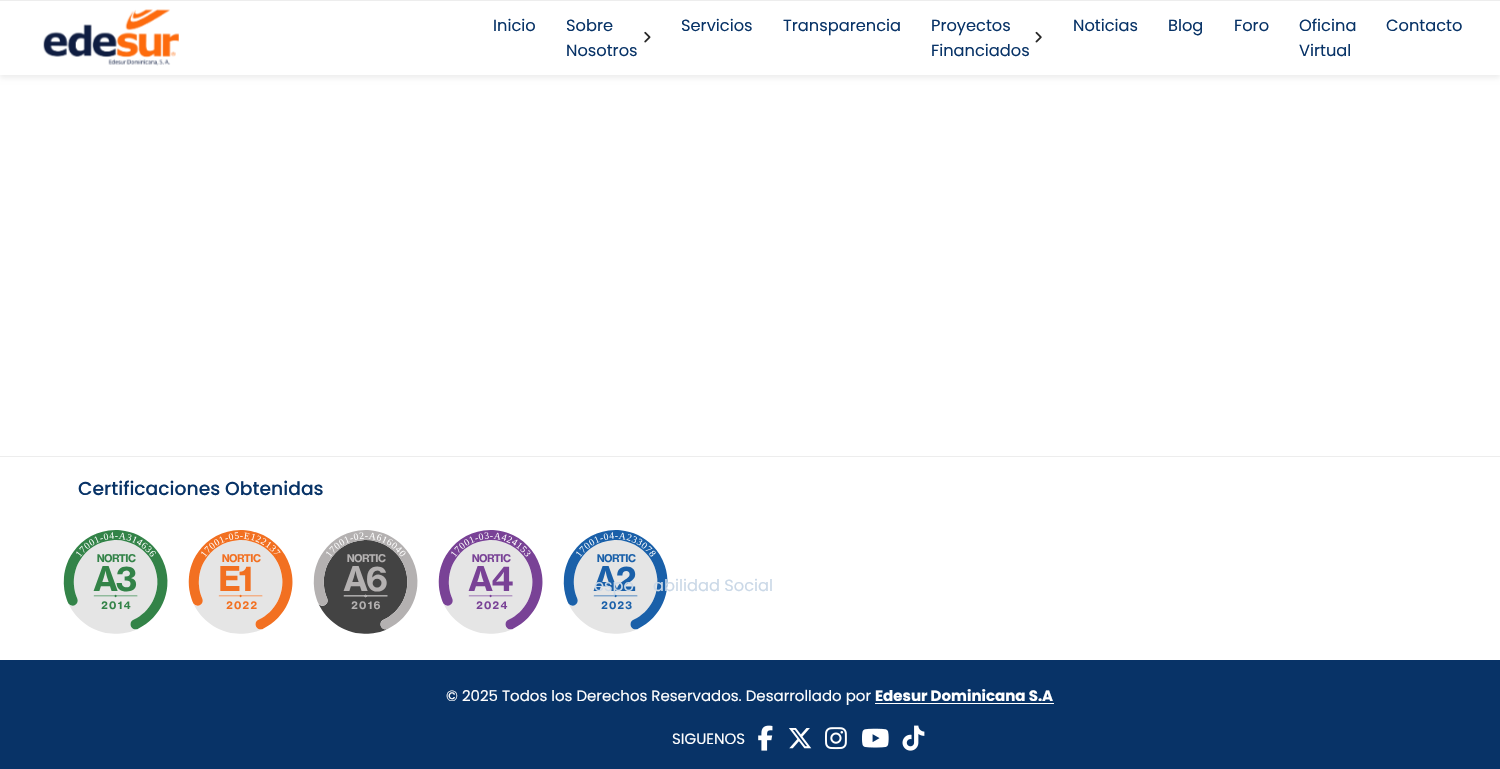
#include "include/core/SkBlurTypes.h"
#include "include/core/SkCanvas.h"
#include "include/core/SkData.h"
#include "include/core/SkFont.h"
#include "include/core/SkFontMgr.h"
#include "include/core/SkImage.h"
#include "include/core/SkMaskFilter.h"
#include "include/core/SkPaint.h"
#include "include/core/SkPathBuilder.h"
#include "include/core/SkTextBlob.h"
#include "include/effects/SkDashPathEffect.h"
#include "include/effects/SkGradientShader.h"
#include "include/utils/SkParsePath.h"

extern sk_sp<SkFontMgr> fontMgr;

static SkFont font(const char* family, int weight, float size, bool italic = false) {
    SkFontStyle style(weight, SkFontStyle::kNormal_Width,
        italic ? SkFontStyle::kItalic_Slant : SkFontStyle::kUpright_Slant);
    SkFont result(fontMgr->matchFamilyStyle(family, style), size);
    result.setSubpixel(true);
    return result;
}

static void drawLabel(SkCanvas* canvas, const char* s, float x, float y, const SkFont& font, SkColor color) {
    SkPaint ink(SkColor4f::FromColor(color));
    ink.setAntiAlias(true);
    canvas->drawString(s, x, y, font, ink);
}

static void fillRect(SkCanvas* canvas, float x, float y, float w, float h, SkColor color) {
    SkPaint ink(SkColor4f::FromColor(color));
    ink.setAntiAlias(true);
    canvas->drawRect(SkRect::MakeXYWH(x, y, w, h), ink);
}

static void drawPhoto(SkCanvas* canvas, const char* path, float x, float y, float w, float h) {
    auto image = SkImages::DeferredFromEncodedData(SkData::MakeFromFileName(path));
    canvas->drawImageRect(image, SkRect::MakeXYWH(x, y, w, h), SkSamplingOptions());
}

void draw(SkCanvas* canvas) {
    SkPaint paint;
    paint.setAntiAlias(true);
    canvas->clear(0xFFFFFFFF);
    paint.setColor(0x12000000);
    paint.setMaskFilter(SkMaskFilter::MakeBlur(kNormal_SkBlurStyle, 2.5f));
    canvas->drawRect(SkRect::MakeXYWH(0, 3, 1500, 75), paint);
    paint.setMaskFilter(nullptr);
    fillRect(canvas, 0, 1, 1500, 74, 0xFFFFFFFF);
    fillRect(canvas, 0, 0, 1500, 1, 0xFFEDEDED);
    drawPhoto(canvas, "assets/img1.png", 43, 9, 136, 57);
    SkFont font1 = font("Poppins", 400, 16.25f);
    drawLabel(canvas, "Inicio", 493, 31, font1, 0xFF083367);
    drawLabel(canvas, "Servicios", 681, 31, font1, 0xFF083367);
    drawLabel(canvas, "Transparencia", 783, 31, font1, 0xFF083367);
    drawLabel(canvas, "Noticias", 1073, 31, font1, 0xFF083367);
    drawLabel(canvas, "Oficina", 1299, 31, font1, 0xFF083367);
    drawLabel(canvas, "Virtual", 1299, 56, font1, 0xFF083367);
    drawLabel(canvas, "Sobre", 566, 31, font1, 0xFF083367);
    drawPhoto(canvas, "assets/img2.png", 644, 31, 7, 12);
    drawLabel(canvas, "Nosotros", 566, 56, font1, 0xFF083367);
    drawPhoto(canvas, "assets/img8.png", 563, 530, 105, 104);
    drawLabel(canvas, "espo", 594, 591, font1, 0xFFCAD8E7);
    drawLabel(canvas, "abilidad Social", 653, 591, font1, 0xFFCAD8E7);
    drawLabel(canvas, "Proyectos", 931, 31, font1, 0xFF083367);
    drawPhoto(canvas, "assets/img3.png", 1035, 31, 7, 12);
    drawLabel(canvas, "Financiados", 931, 56, font1, 0xFF083367);
    drawLabel(canvas, "Blog", 1168, 31, font1, 0xFF083367);
    drawLabel(canvas, "Foro", 1234, 31, font1, 0xFF083367);
    drawLabel(canvas, "Contacto", 1386, 31, font1, 0xFF083367);
    fillRect(canvas, 0, 456, 1500, 1, 0xFFEDEDED);
    SkFont font2 = font("Poppins", 500, 18.75f);
    drawLabel(canvas, "Certificaciones Obtenidas", 78, 495, font2, 0xFF083367);
    drawPhoto(canvas, "assets/img4.png", 63, 530, 105, 104);
    drawPhoto(canvas, "assets/img5.png", 188, 530, 105, 104);
    drawPhoto(canvas, "assets/img6.png", 313, 530, 105, 104);
    drawPhoto(canvas, "assets/img7.png", 438, 530, 105, 104);
    fillRect(canvas, 0, 660, 1500, 109, 0xFF083367);
    SkFont font3 = font("Poppins", 400, 15);
    drawLabel(canvas, "© 2025 Todos los Derechos Reservados. Desarrollado por", 446, 701, font3, 0xFFFFFFFF);
    SkFont font4 = font("Poppins", 700, 15);
    drawLabel(canvas, "Edesur Dominicana S.A", 875, 701, font4, 0xFFFFFFFF);
    fillRect(canvas, 875, 703, 179, 1, 0xFFFFFFFF);
    drawLabel(canvas, "SIGUENOS", 672, 744, font3, 0xFFFFFFFF);
    drawPhoto(canvas, "assets/img9.png", 758, 725, 15, 26);
    drawPhoto(canvas, "assets/img10.png", 789, 728, 23, 21);
    drawPhoto(canvas, "assets/img11.png", 825, 727, 22, 23);
    drawPhoto(canvas, "assets/img12.png", 862, 728, 27, 20);
    drawPhoto(canvas, "assets/img13.png", 902, 725, 23, 26);
}
